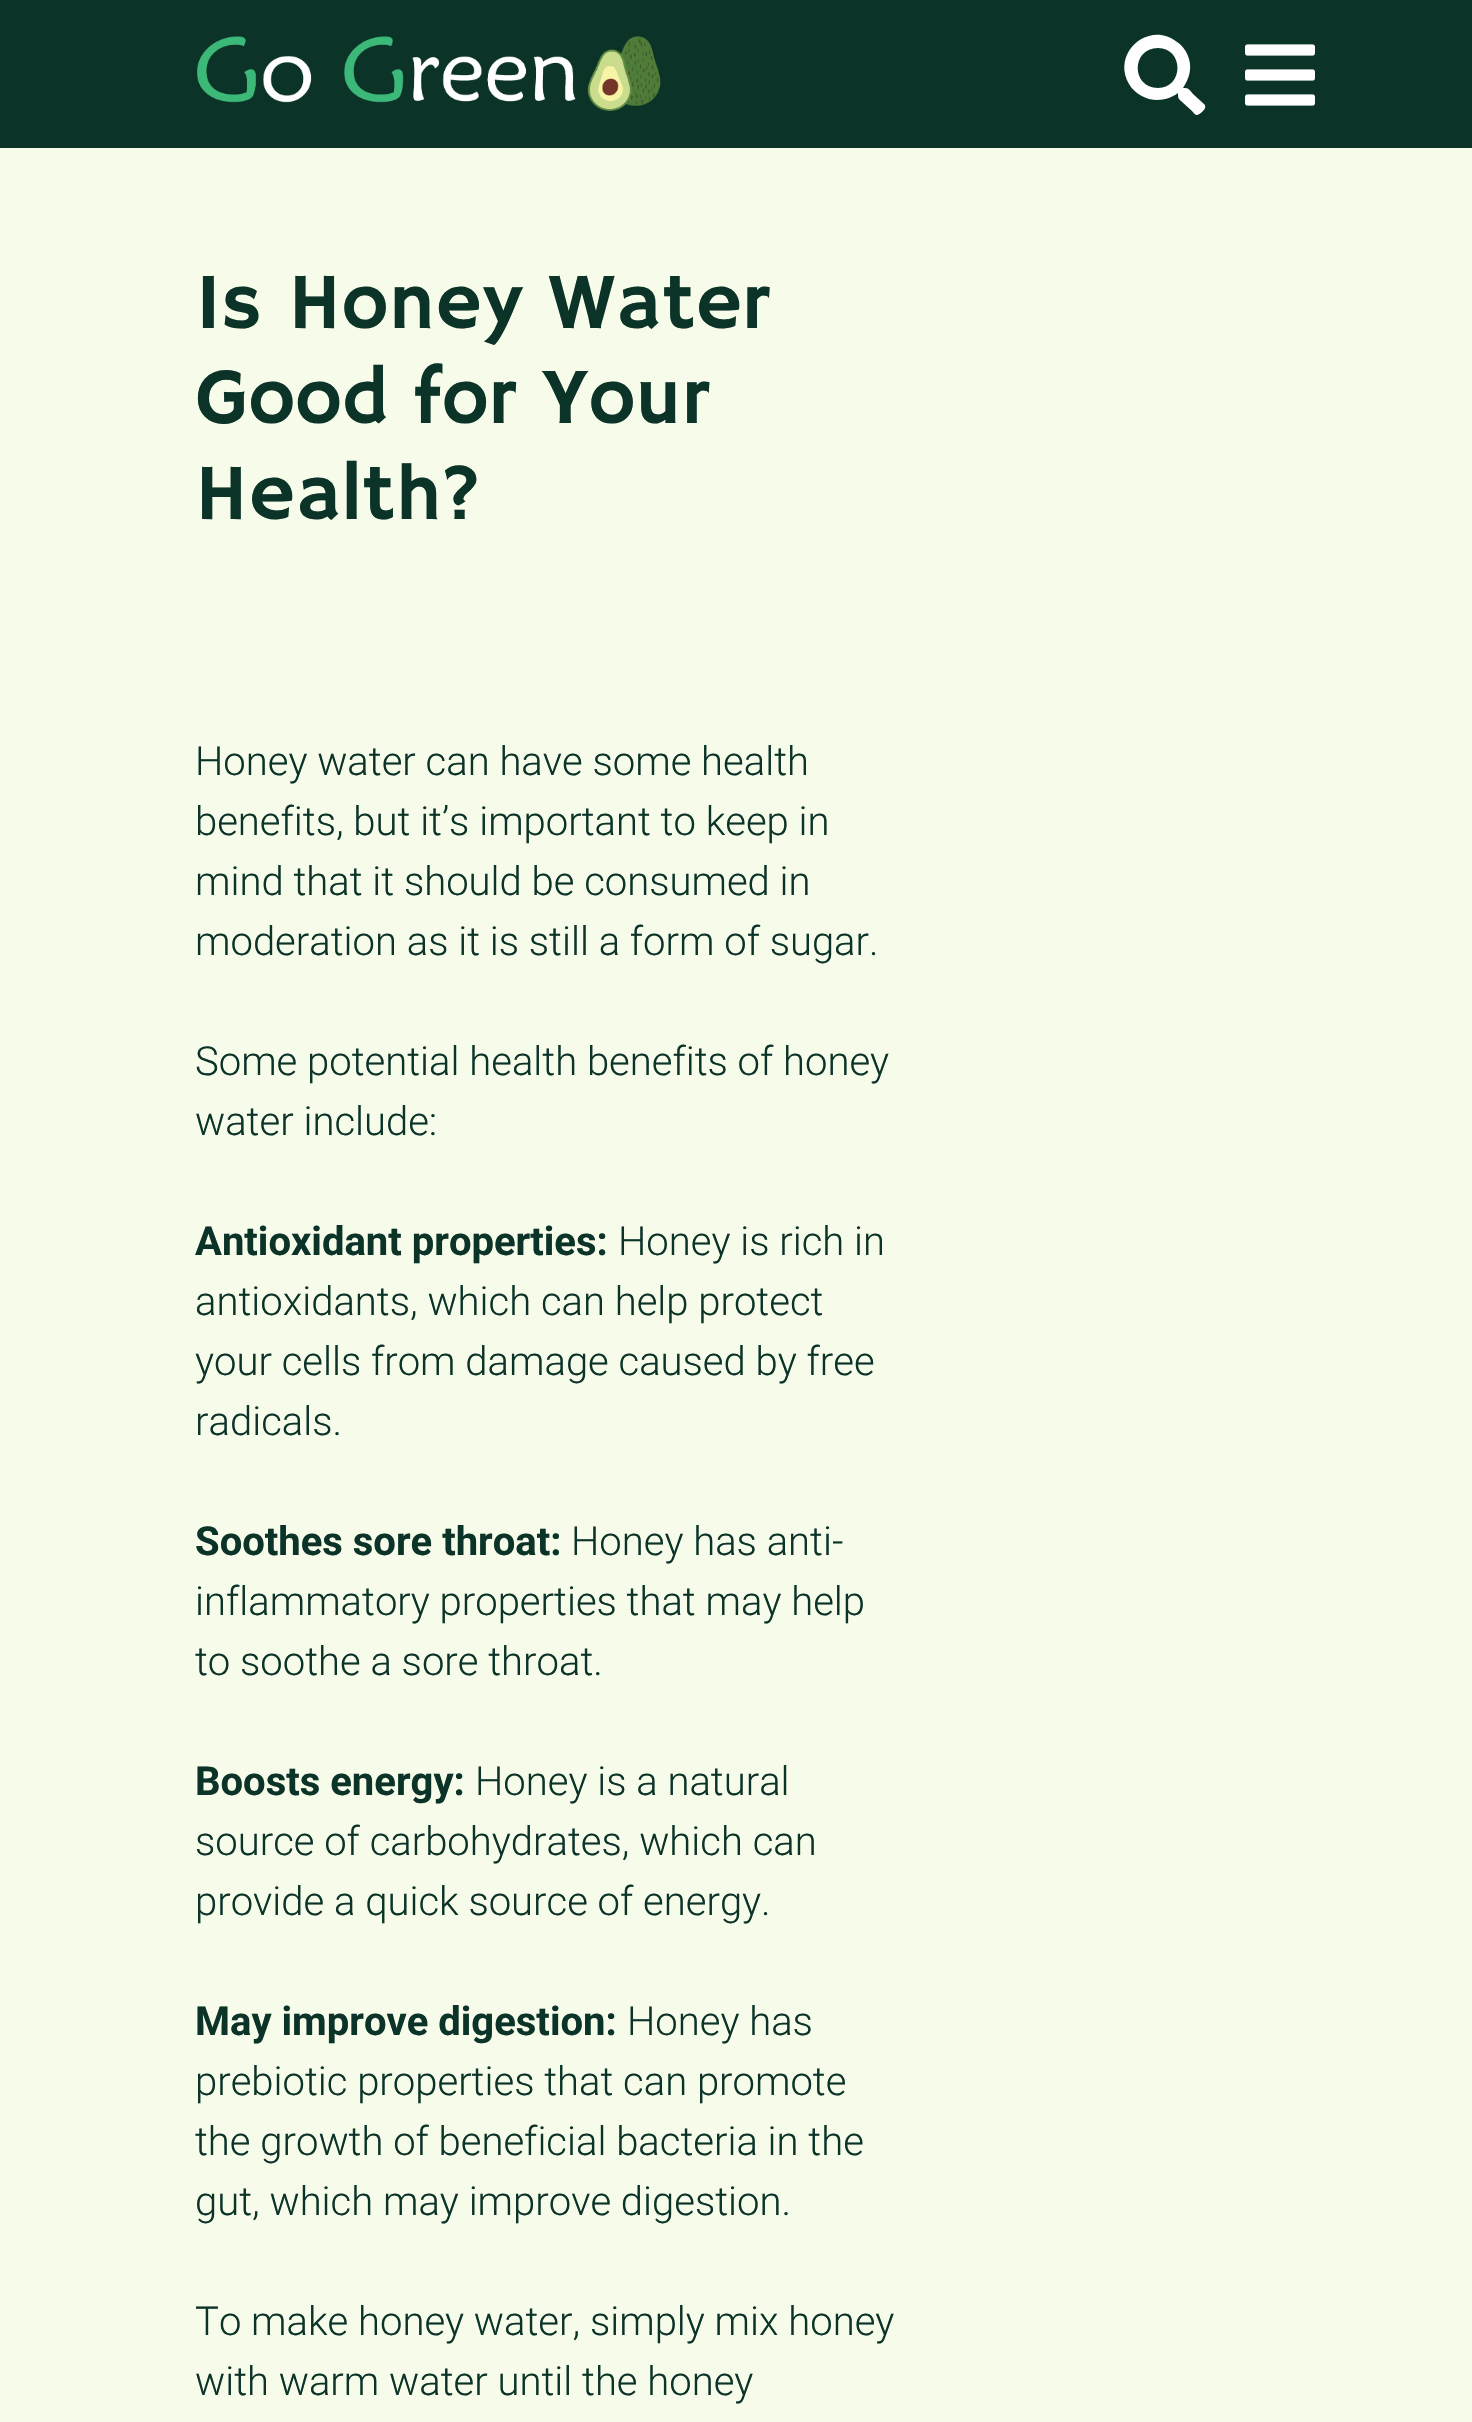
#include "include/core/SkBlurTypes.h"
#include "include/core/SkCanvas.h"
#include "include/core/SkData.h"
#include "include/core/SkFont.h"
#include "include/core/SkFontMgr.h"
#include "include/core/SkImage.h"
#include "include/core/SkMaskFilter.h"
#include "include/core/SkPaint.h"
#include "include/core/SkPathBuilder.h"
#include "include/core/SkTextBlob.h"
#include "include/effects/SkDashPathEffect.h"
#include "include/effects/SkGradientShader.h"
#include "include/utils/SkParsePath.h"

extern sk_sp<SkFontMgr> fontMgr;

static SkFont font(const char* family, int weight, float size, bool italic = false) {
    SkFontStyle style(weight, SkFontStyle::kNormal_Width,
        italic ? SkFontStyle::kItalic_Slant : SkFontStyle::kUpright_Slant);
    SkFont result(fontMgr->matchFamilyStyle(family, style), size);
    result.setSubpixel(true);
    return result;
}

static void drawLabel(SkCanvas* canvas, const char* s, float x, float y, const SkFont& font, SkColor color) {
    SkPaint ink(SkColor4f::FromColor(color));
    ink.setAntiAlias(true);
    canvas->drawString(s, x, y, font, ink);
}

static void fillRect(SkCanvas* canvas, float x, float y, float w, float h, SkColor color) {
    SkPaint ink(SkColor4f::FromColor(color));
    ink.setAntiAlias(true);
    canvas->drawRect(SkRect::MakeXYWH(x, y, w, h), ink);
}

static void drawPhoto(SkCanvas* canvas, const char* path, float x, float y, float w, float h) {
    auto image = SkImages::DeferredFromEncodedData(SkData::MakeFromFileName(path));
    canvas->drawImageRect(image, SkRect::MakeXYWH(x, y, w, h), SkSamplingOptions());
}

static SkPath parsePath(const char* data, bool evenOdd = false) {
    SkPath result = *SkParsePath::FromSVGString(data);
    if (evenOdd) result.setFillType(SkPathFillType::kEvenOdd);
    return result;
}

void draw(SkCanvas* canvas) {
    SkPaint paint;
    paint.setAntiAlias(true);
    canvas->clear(0xFFF7FBEA);
    fillRect(canvas, 0, 0, 1472, 148, 0xFF0B3328);
    drawPhoto(canvas, "assets/img1.png", 197, 36, 464, 75);
    paint.setColor(0xFFFFFFFF);
    canvas->drawPath(parsePath("M1204 104L1193 94C1189 89 1189 88 1183 88C1189 79 1192 69 1189 59C1187 52 1183 46 1177 42C1149 20 1111 53 1129 84C1139 101 1162 105 1178 93C1178 98 1178 98 1181 101L1192 111C1196 116 1197 116 1202 112C1204 110 1207 107 1204 104ZM1158 88C1131 88 1131 48 1158 48C1184 48 1184 88 1158 88Z"), paint);
    drawPhoto(canvas, "assets/img2.png", 1245, 44, 70, 62);
    SkFont font1 = font("Hammersmith One", 400, 80);
    drawLabel(canvas, "Is Honey Water", 195, 328, font1, 0xFF0B3328);
    drawLabel(canvas, "Good for Your", 195, 423, font1, 0xFF0B3328);
    drawLabel(canvas, "Health?", 195, 519, font1, 0xFF0B3328);
    SkFont font2 = font("Roboto", 300, 40);
    drawLabel(canvas, "Honey water can have some health", 195, 775, font2, 0xFF0B3328);
    drawLabel(canvas, "benefits, but it’s important to keep in", 195, 835, font2, 0xFF0B3328);
    drawLabel(canvas, "mind that it should be consumed in", 195, 895, font2, 0xFF0B3328);
    drawLabel(canvas, "moderation as it is still a form of sugar.", 195, 955, font2, 0xFF0B3328);
    drawLabel(canvas, "Some potential health benefits of honey", 195, 1075, font2, 0xFF0B3328);
    drawLabel(canvas, "water include:", 195, 1135, font2, 0xFF0B3328);
    SkFont font3 = font("Roboto", 700, 40);
    drawLabel(canvas, "Antioxidant properties:", 195, 1255, font3, 0xFF0B3328);
    drawLabel(canvas, "Honey is rich in", 618, 1255, font2, 0xFF0B3328);
    drawLabel(canvas, "antioxidants, which can help protect", 195, 1315, font2, 0xFF0B3328);
    drawLabel(canvas, "your cells from damage caused by free", 195, 1375, font2, 0xFF0B3328);
    drawLabel(canvas, "radicals.", 195, 1435, font2, 0xFF0B3328);
    drawLabel(canvas, "Soothes sore throat:", 195, 1555, font3, 0xFF0B3328);
    drawLabel(canvas, "Honey has anti-", 571, 1555, font2, 0xFF0B3328);
    drawLabel(canvas, "inflammatory properties that may help", 195, 1615, font2, 0xFF0B3328);
    drawLabel(canvas, "to soothe a sore throat.", 195, 1675, font2, 0xFF0B3328);
    drawLabel(canvas, "Boosts energy:", 195, 1795, font3, 0xFF0B3328);
    drawLabel(canvas, "Honey is a natural", 475, 1795, font2, 0xFF0B3328);
    drawLabel(canvas, "source of carbohydrates, which can", 195, 1855, font2, 0xFF0B3328);
    drawLabel(canvas, "provide a quick source of energy.", 195, 1915, font2, 0xFF0B3328);
    drawLabel(canvas, "May improve digestion:", 195, 2035, font3, 0xFF0B3328);
    drawLabel(canvas, "Honey has", 627, 2035, font2, 0xFF0B3328);
    drawLabel(canvas, "prebiotic properties that can promote", 195, 2095, font2, 0xFF0B3328);
    drawLabel(canvas, "the growth of beneficial bacteria in the", 195, 2155, font2, 0xFF0B3328);
    drawLabel(canvas, "gut, which may improve digestion.", 195, 2215, font2, 0xFF0B3328);
    drawLabel(canvas, "To make honey water, simply mix honey", 195, 2335, font2, 0xFF0B3328);
    drawLabel(canvas, "with warm water until the honey", 195, 2395, font2, 0xFF0B3328);
}
